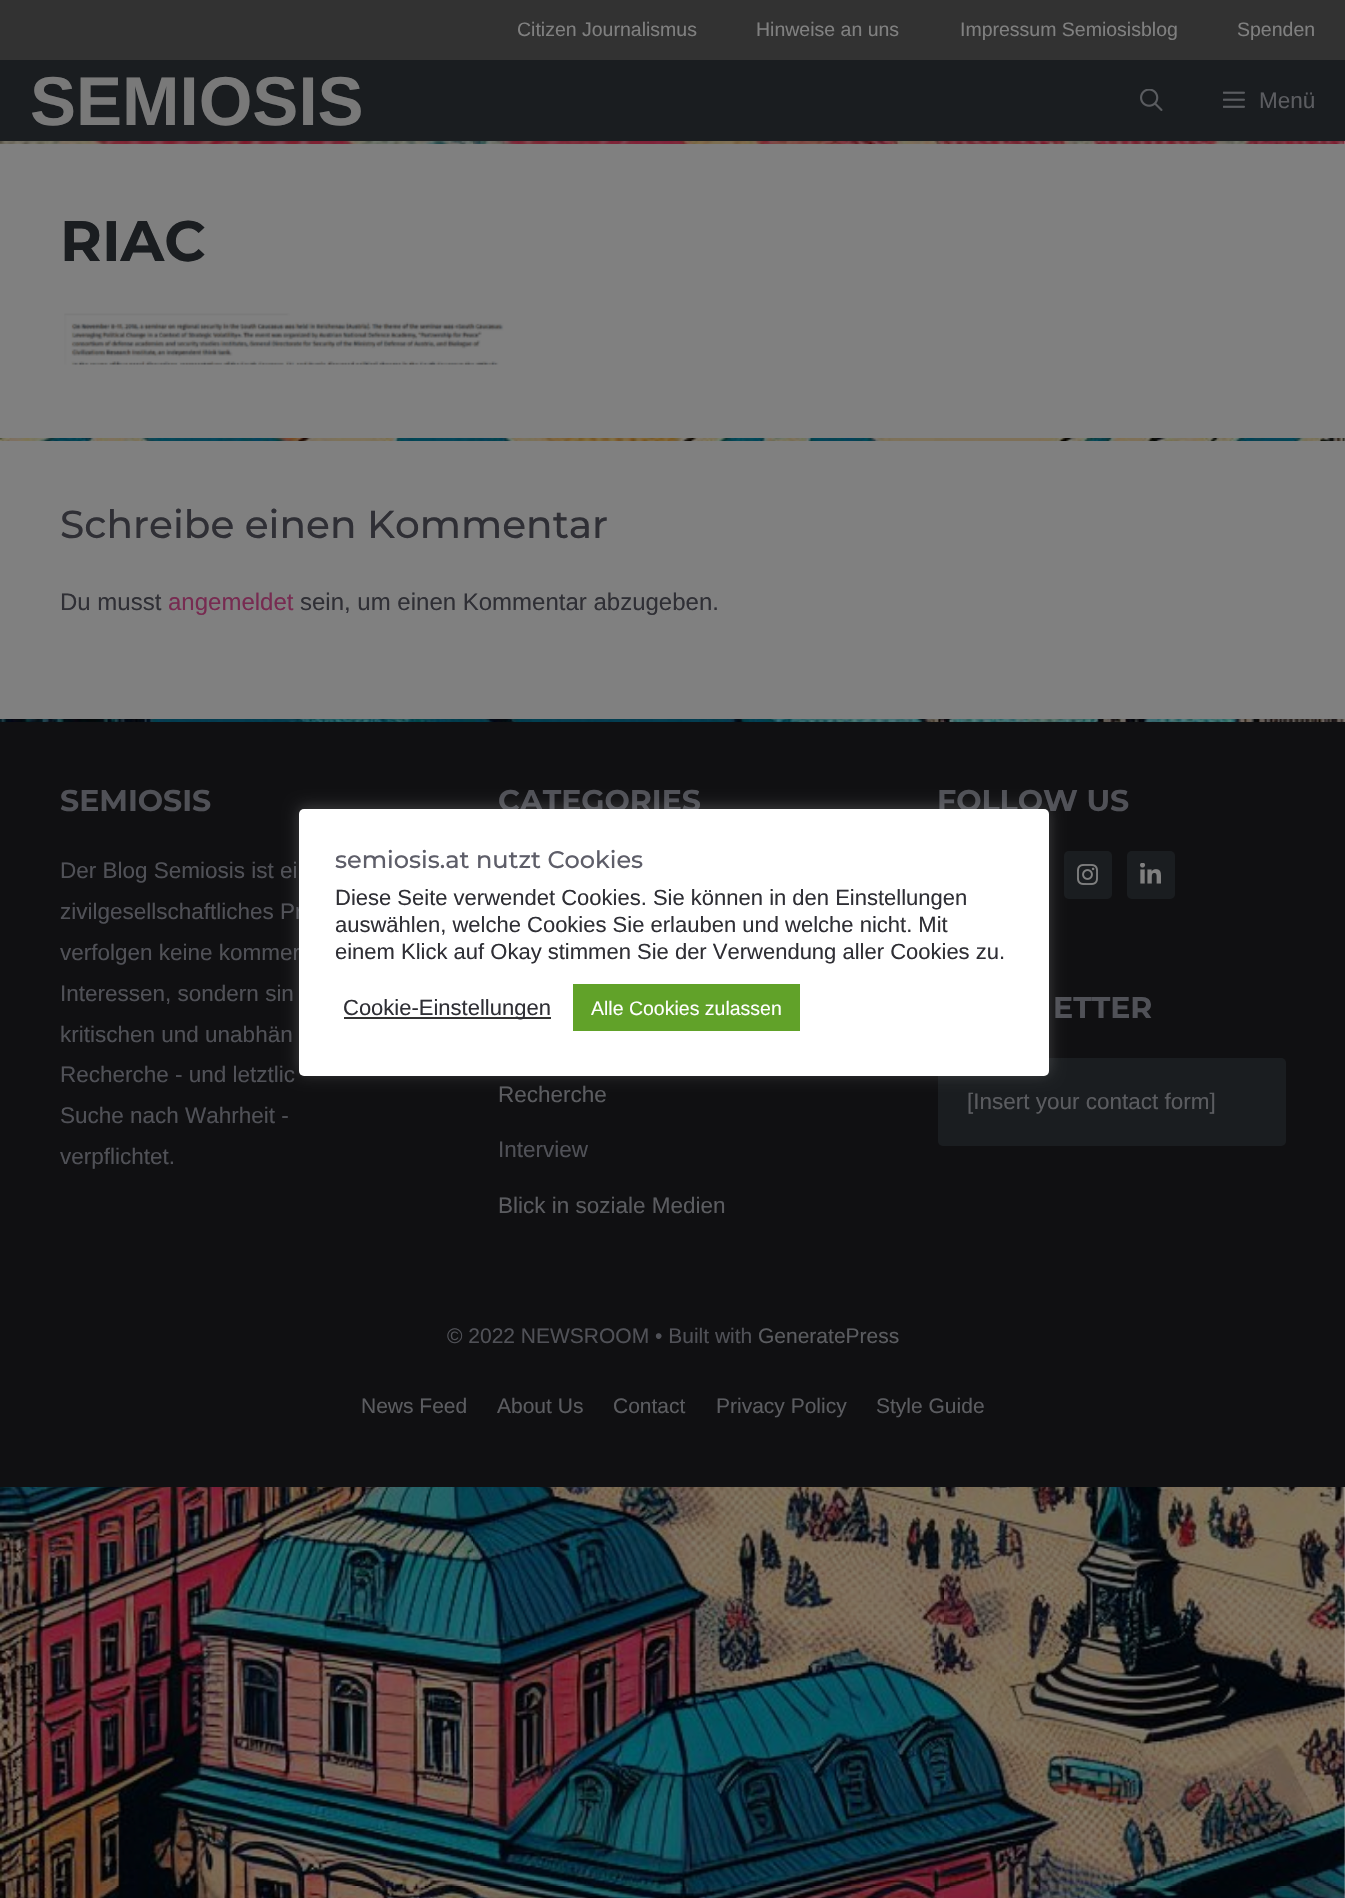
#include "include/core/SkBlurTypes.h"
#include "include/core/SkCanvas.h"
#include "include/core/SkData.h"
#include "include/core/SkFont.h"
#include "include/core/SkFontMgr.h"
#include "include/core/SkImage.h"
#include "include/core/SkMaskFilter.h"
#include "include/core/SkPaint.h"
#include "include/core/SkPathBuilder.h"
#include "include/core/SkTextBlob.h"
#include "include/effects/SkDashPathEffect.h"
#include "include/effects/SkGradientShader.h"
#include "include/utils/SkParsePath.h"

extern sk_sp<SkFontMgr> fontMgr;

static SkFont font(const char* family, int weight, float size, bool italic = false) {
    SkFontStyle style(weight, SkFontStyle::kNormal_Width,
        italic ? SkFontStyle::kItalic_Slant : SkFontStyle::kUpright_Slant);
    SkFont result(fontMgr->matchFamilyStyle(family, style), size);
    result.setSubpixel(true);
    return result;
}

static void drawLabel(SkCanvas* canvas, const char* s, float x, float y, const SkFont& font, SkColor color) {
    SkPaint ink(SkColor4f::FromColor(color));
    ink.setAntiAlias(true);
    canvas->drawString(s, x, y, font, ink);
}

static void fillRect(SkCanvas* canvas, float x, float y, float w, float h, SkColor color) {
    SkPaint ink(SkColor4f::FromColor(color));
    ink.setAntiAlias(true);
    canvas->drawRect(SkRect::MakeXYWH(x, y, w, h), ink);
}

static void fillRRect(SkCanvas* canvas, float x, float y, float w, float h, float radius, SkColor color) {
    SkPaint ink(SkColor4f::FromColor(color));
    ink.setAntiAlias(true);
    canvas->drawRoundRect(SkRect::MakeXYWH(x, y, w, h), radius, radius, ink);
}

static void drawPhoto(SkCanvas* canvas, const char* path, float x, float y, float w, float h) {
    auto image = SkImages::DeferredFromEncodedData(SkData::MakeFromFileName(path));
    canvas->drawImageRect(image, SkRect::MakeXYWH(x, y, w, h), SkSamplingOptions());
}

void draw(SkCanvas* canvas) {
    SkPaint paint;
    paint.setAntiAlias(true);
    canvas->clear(0xFFFFFFFF);
    drawPhoto(canvas, "assets/img1.png", 0, 141, 1345, 1757);
    fillRect(canvas, 0, 0, 1345, 60, 0xFF323232);
    SkFont font1 = font("Liberation Sans", 400, 19.5f);
    drawLabel(canvas, "Citizen Journalismus", 517, 36, font1, 0xFF808080);
    drawLabel(canvas, "Hinweise an uns", 756, 36, font1, 0xFF808080);
    drawLabel(canvas, "Impressum Semiosisblog", 960, 36, font1, 0xFF808080);
    drawLabel(canvas, "Spenden", 1237, 36, font1, 0xFF808080);
    fillRect(canvas, 0, 60, 1345, 81, 0xFF1A1D20);
    SkFont font2 = font("Liberation Sans", 700, 69);
    drawLabel(canvas, "SEMIOSIS", 30, 125, font2, 0xFF797979);
    drawPhoto(canvas, "assets/img2.png", 1140, 89, 23, 22);
    drawPhoto(canvas, "assets/img3.png", 1223, 91, 22, 17);
    SkFont font3 = font("Liberation Sans", 400, 22.5f);
    drawLabel(canvas, "Menü", 1259, 108, font3, 0xFF5B5C60);
    fillRect(canvas, 0, 144, 1345, 294, 0xFF808080);
    SkFont font4 = font("Montserrat", 700, 57);
    drawLabel(canvas, "RIAC", 60, 261, font4, 0xFF1A1D20);
    drawPhoto(canvas, "assets/img4.png", 64, 313, 440, 52);
    fillRect(canvas, 0, 441, 1345, 278, 0xFF808080);
    SkFont font5 = font("Montserrat", 500, 39);
    drawLabel(canvas, "Schreibe einen Kommentar", 60, 538, font5, 0xFF2F2F35);
    SkFont font6 = font("Liberation Sans", 400, 24);
    drawLabel(canvas, "Du musst", 60, 610, font6, 0xFF2F2F35);
    drawLabel(canvas, "angemeldet", 168, 610, font6, 0xFF772B51);
    drawLabel(canvas, "sein, um einen Kommentar abzugeben.", 300, 610, font6, 0xFF2F2F35);
    fillRect(canvas, 0, 722, 1345, 765, 0xFF101012);
    SkFont font7 = font("Montserrat", 700, 30);
    drawLabel(canvas, "SEMIOSIS", 60, 811, font7, 0xFF505157);
    drawLabel(canvas, "Der Blog Semiosis ist ei", 60, 878, font3, 0xFF505157);
    drawLabel(canvas, "zivilgesellschaftliches Pr", 60, 919, font3, 0xFF505157);
    drawLabel(canvas, "verfolgen keine kommer", 60, 960, font3, 0xFF505157);
    drawLabel(canvas, "Interessen, sondern sin", 60, 1001, font3, 0xFF505157);
    drawLabel(canvas, "kritischen und unabhän", 60, 1042, font3, 0xFF505157);
    drawLabel(canvas, "Recherche - und letztlic", 60, 1082, font3, 0xFF505157);
    drawLabel(canvas, "Suche nach Wahrheit -", 60, 1123, font3, 0xFF505157);
    drawLabel(canvas, "verpflichtet.", 60, 1164, font3, 0xFF505157);
    drawLabel(canvas, "CATEGORIES", 498, 811, font7, 0xFF505157);
    drawLabel(canvas, "Recherche", 498, 1102, font3, 0xFF5B5C60);
    drawLabel(canvas, "Interview", 498, 1157, font3, 0xFF505157);
    drawLabel(canvas, "Blick in soziale Medien", 498, 1213, font3, 0xFF5B5C60);
    drawLabel(canvas, "FOLLOW US", 937, 811, font7, 0xFF505157);
    fillRRect(canvas, 1064, 851, 48, 48, 5, 0xFF1A1D20);
    drawPhoto(canvas, "assets/img5.png", 1077, 864, 21, 21);
    fillRRect(canvas, 1127, 851, 48, 48, 5, 0xFF1A1D20);
    drawPhoto(canvas, "assets/img6.png", 1140, 863, 21, 21);
    drawLabel(canvas, "ETTER", 1053, 1018, font7, 0xFF505157);
    fillRRect(canvas, 938, 1058, 348, 88, 5, 0xFF1A1D20);
    drawLabel(canvas, "[Insert your contact form]", 967, 1109, font3, 0xFF5B5C60);
    SkFont font8 = font("Liberation Sans", 400, 21);
    drawLabel(canvas, "© 2022 NEWSROOM • Built with", 447, 1343, font8, 0xFF505157);
    drawLabel(canvas, "GeneratePress", 758, 1343, font8, 0xFF5B5C60);
    drawLabel(canvas, "News Feed", 361, 1413, font8, 0xFF5B5C60);
    drawLabel(canvas, "About Us", 497, 1413, font8, 0xFF5B5C60);
    drawLabel(canvas, "Contact", 613, 1413, font8, 0xFF5B5C60);
    drawLabel(canvas, "Privacy Policy", 716, 1413, font8, 0xFF5B5C60);
    drawLabel(canvas, "Style Guide", 876, 1413, font8, 0xFF5B5C60);
    paint.setColor(0x4DACABAB);
    paint.setMaskFilter(SkMaskFilter::MakeBlur(kNormal_SkBlurStyle, 7.5f));
    canvas->drawRoundRect(SkRect::MakeXYWH(299, 807, 750, 267), 5, 5, paint);
    paint.setMaskFilter(nullptr);
    fillRRect(canvas, 299, 809, 750, 267, 5, 0xFFFFFFFF);
    SkFont font9 = font("Montserrat", 500, 24);
    drawLabel(canvas, "semiosis.at nutzt Cookies", 335, 868, font9, 0xFF5E5E69);
    SkFont font10 = font("Liberation Sans", 400, 22);
    drawLabel(canvas, "Diese Seite verwendet Cookies. Sie können in den Einstellungen", 335, 905, font10, 0xFF2F2F35);
    drawLabel(canvas, "auswählen, welche Cookies Sie erlauben und welche nicht. Mit", 335, 932, font10, 0xFF2F2F35);
    drawLabel(canvas, "einem Klick auf Okay stimmen Sie der Verwendung aller Cookies zu.", 335, 959, font10, 0xFF2F2F35);
    fillRect(canvas, 344, 1017, 207, 2, 0xFF333333);
    drawLabel(canvas, "Cookie-Einstellungen", 343, 1015, font10, 0xFF2F2F35);
    fillRect(canvas, 573, 984, 227, 47, 0xFF61A229);
    drawLabel(canvas, "Alle Cookies zulassen", 591, 1015, font1, 0xFFFFFFFF);
}
